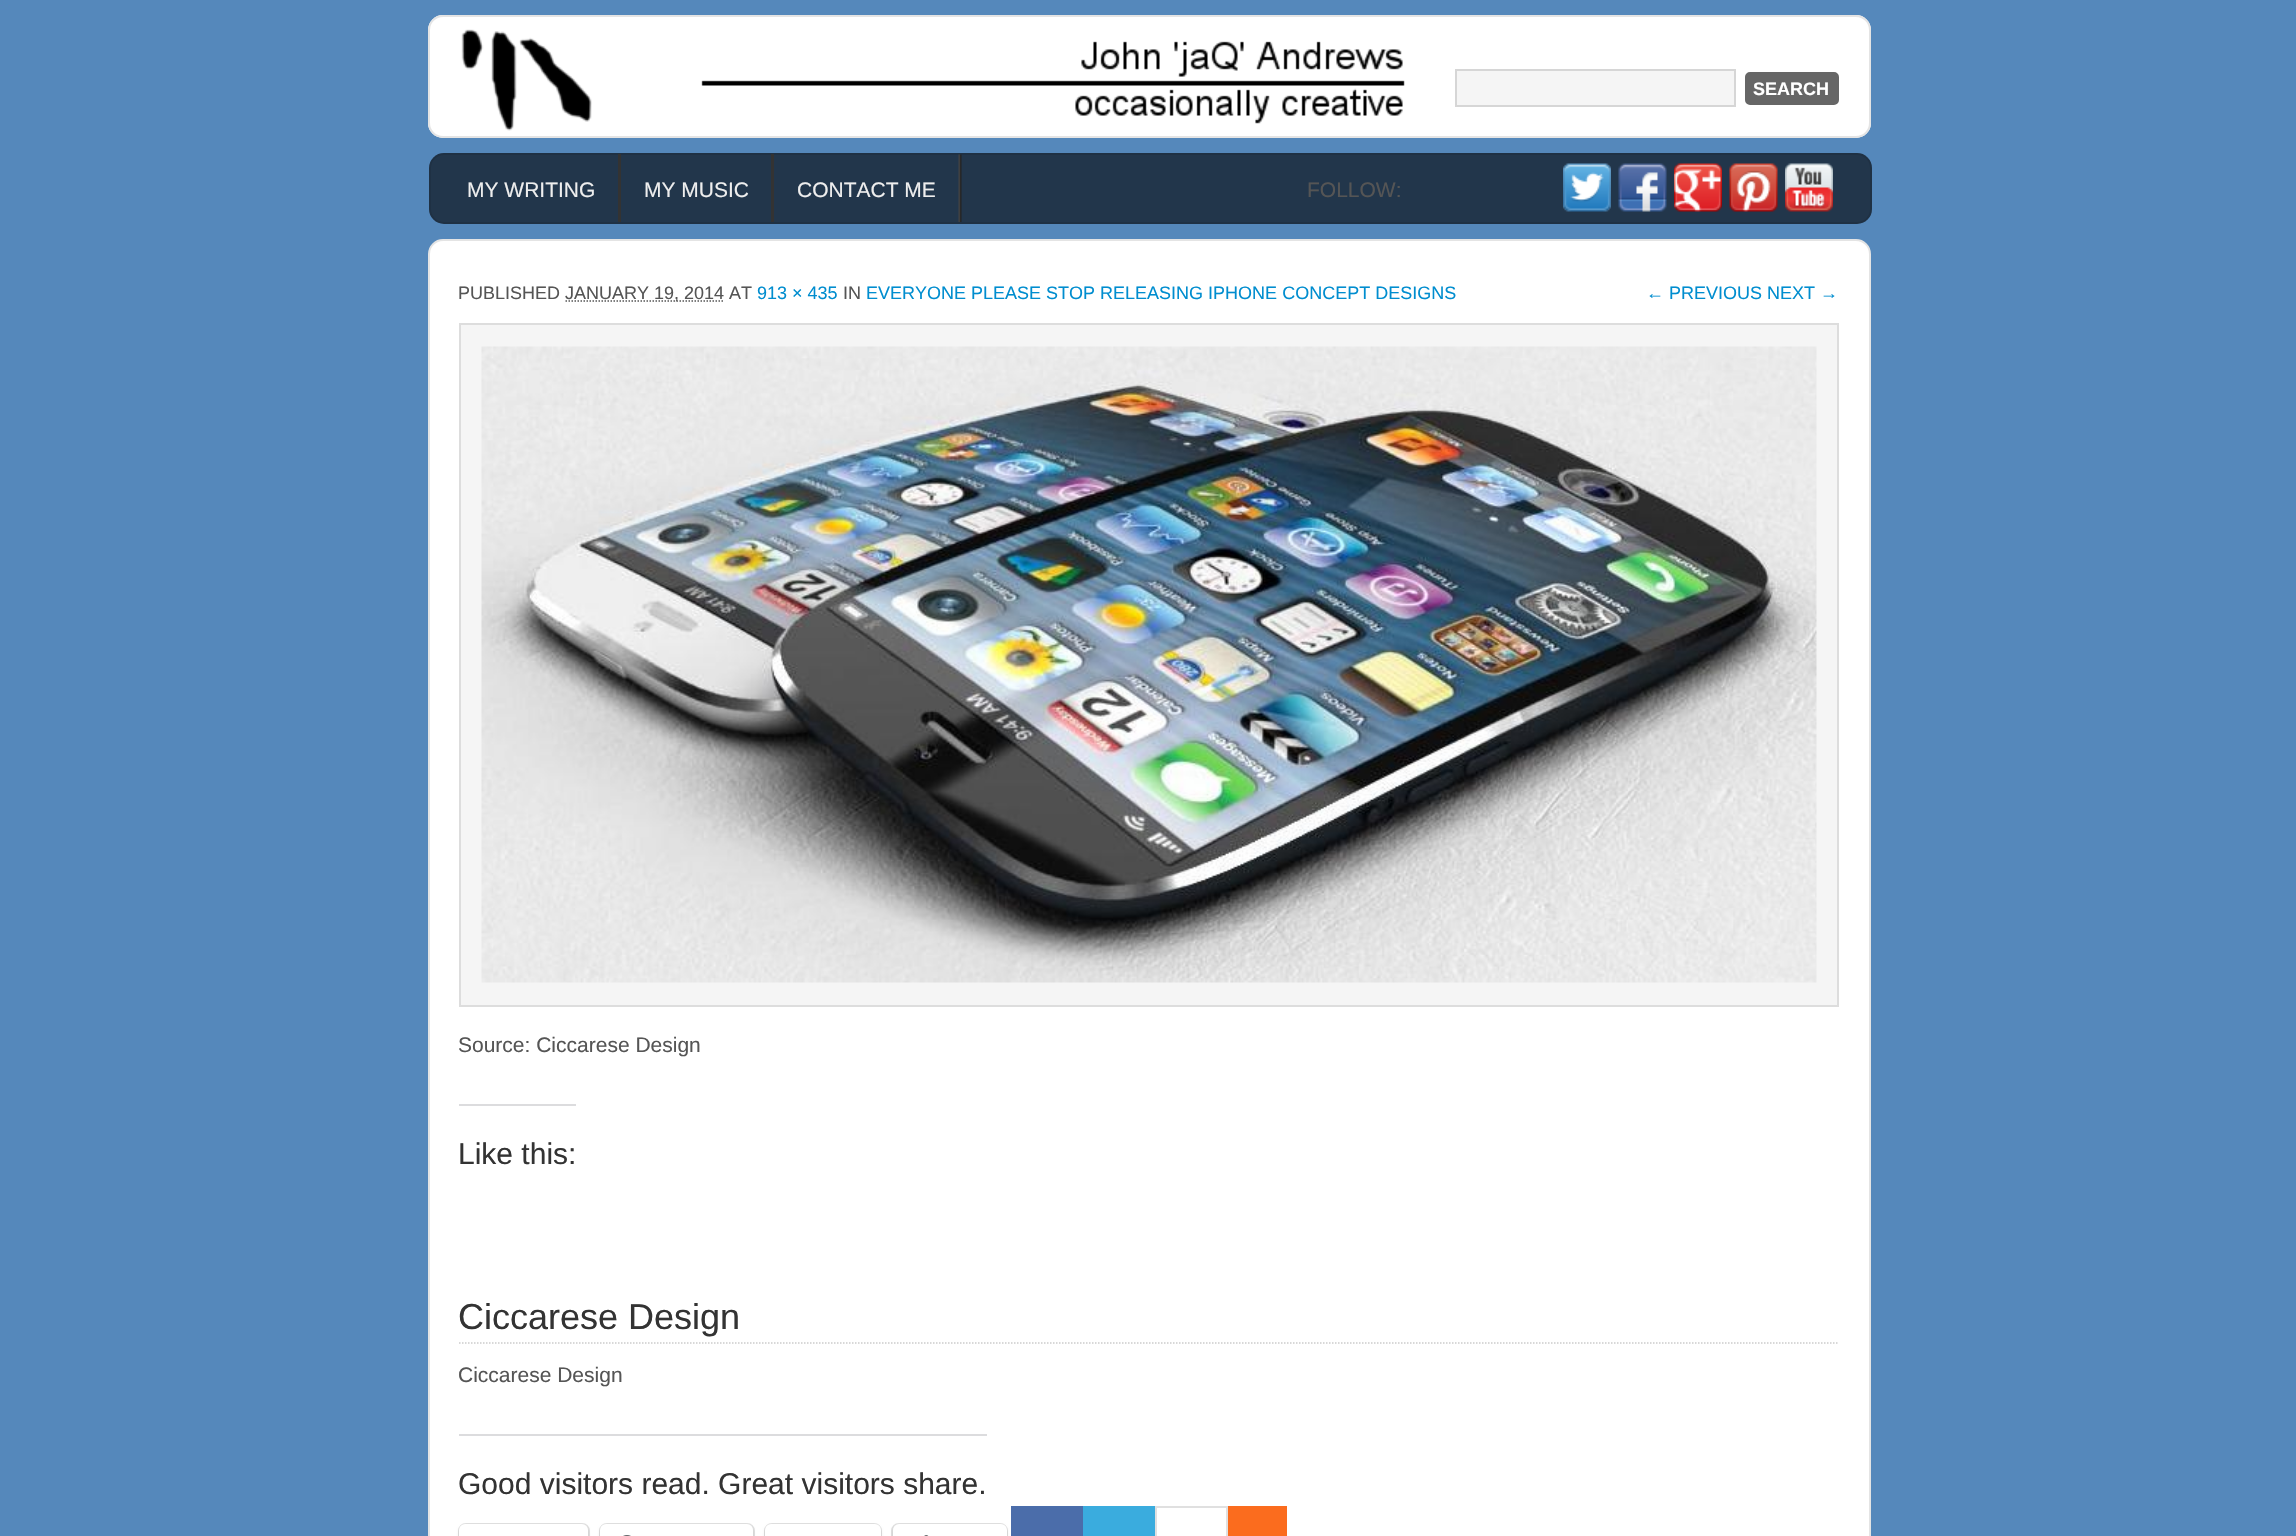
#include "include/core/SkBlurTypes.h"
#include "include/core/SkCanvas.h"
#include "include/core/SkData.h"
#include "include/core/SkFont.h"
#include "include/core/SkFontMgr.h"
#include "include/core/SkImage.h"
#include "include/core/SkMaskFilter.h"
#include "include/core/SkPaint.h"
#include "include/core/SkPathBuilder.h"
#include "include/core/SkTextBlob.h"
#include "include/effects/SkDashPathEffect.h"
#include "include/effects/SkGradientShader.h"
#include "include/utils/SkParsePath.h"

extern sk_sp<SkFontMgr> fontMgr;

static SkFont font(const char* family, int weight, float size, bool italic = false) {
    SkFontStyle style(weight, SkFontStyle::kNormal_Width,
        italic ? SkFontStyle::kItalic_Slant : SkFontStyle::kUpright_Slant);
    SkFont result(fontMgr->matchFamilyStyle(family, style), size);
    result.setSubpixel(true);
    return result;
}

static void drawLabel(SkCanvas* canvas, const char* s, float x, float y, const SkFont& font, SkColor color) {
    SkPaint ink(SkColor4f::FromColor(color));
    ink.setAntiAlias(true);
    canvas->drawString(s, x, y, font, ink);
}

static void fillRect(SkCanvas* canvas, float x, float y, float w, float h, SkColor color) {
    SkPaint ink(SkColor4f::FromColor(color));
    ink.setAntiAlias(true);
    canvas->drawRect(SkRect::MakeXYWH(x, y, w, h), ink);
}

static void fillRRect(SkCanvas* canvas, float x, float y, float w, float h, float radius, SkColor color) {
    SkPaint ink(SkColor4f::FromColor(color));
    ink.setAntiAlias(true);
    canvas->drawRoundRect(SkRect::MakeXYWH(x, y, w, h), radius, radius, ink);
}

static void drawPhoto(SkCanvas* canvas, const char* path, float x, float y, float w, float h) {
    auto image = SkImages::DeferredFromEncodedData(SkData::MakeFromFileName(path));
    canvas->drawImageRect(image, SkRect::MakeXYWH(x, y, w, h), SkSamplingOptions());
}

static SkPath parsePath(const char* data, bool evenOdd = false) {
    SkPath result = *SkParsePath::FromSVGString(data);
    if (evenOdd) result.setFillType(SkPathFillType::kEvenOdd);
    return result;
}

void draw(SkCanvas* canvas) {
    SkPaint paint;
    paint.setAntiAlias(true);
    canvas->clear(0xFF5588BB);
    fillRRect(canvas, 428, 15, 1443, 123, 15, 0xFFFFFFFF);
    drawPhoto(canvas, "assets/img1.png", 461, 29, 944, 102);
    paint.setStroke(true);
    paint.setStrokeWidth(2);
    paint.setColor(0xFFE4E4E4);
    canvas->drawRoundRect(SkRect::MakeXYWH(429, 16, 1441, 121), 14, 14, paint);
    paint.setStroke(false);
    paint.setColor(0xFFF5F5F5);
    canvas->drawRect(SkRect::MakeXYWH(1456, 70, 279, 36), paint);
    paint.setStroke(true);
    paint.setColor(0xFFD6D6D6);
    canvas->drawRect(SkRect::MakeXYWH(1456, 70, 279, 36), paint);
    paint.setStroke(false);
    paint.setColor(0xFF666666);
    canvas->drawRoundRect(SkRect::MakeXYWH(1746, 73, 92, 31), 4, 4, paint);
    paint.setStroke(true);
    canvas->drawRoundRect(SkRect::MakeXYWH(1746, 73, 92, 31), 4, 4, paint);
    SkFont font1 = font("Liberation Sans", 700, 18);
    drawLabel(canvas, "SEARCH", 1753, 95, font1, 0xFFFFFFFF);
    fillRRect(canvas, 429, 153, 1443, 71, 15, 0xFF22364B);
    paint.setColor(0x1A000000);
    canvas->drawRoundRect(SkRect::MakeXYWH(430, 154, 1441, 69), 14, 14, paint);
    fillRect(canvas, 618, 154, 3, 68, 0xFF333333);
    SkFont font2 = font("Liberation Sans", 400, 21);
    drawLabel(canvas, "MY WRITING", 467, 197, font2, 0xFFEEEEEE);
    fillRect(canvas, 771, 154, 3, 68, 0xFF333333);
    drawLabel(canvas, "MY MUSIC", 644, 197, font2, 0xFFEEEEEE);
    drawPhoto(canvas, "assets/img2.png", 958, 154, 4, 68);
    drawLabel(canvas, "CONTACT ME", 797, 197, font2, 0xFFEEEEEE);
    drawLabel(canvas, "FOLLOW:", 1307, 197, font2, 0xFF555555);
    drawPhoto(canvas, "assets/img3.png", 1563, 163, 48, 49);
    drawPhoto(canvas, "assets/img4.png", 1618, 163, 49, 49);
    drawPhoto(canvas, "assets/img5.png", 1674, 163, 48, 49);
    drawPhoto(canvas, "assets/img6.png", 1729, 163, 49, 49);
    drawPhoto(canvas, "assets/img7.png", 1785, 163, 48, 49);
    paint.setStroke(false);
    paint.setColor(0xFFFFFFFF);
    canvas->drawRoundRect(SkRect::MakeXYWH(429, 240, 1441, 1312), 14, 14, paint);
    paint.setStroke(true);
    paint.setColor(0xFFE4E4E4);
    canvas->drawRoundRect(SkRect::MakeXYWH(429, 240, 1441, 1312), 14, 14, paint);
    SkFont font3 = font("Liberation Sans", 400, 18);
    drawLabel(canvas, "PUBLISHED", 458, 299, font3, 0xFF555555);
    paint.setStrokeWidth(1.5f);
    paint.setColor(0xFF555555);
    paint.setPathEffect(SkDashPathEffect::Make({{1.5f, 1.5f}}, 0));
    canvas->drawPath(parsePath("M565.5 301H724.5"), paint);
    paint.setPathEffect(nullptr);
    drawLabel(canvas, "JANUARY 19, 2014 AT", 565, 299, font3, 0xFF555555);
    drawLabel(canvas, "913 × 435", 757, 299, font3, 0xFF008DCF);
    drawLabel(canvas, "IN", 843, 299, font3, 0xFF555555);
    drawLabel(canvas, "EVERYONE PLEASE STOP RELEASING IPHONE CONCEPT DESIGNS", 866, 299, font3, 0xFF008DCF);
    drawLabel(canvas, "← PREVIOUS NEXT →", 1646, 299, font3, 0xFF008DCF);
    paint.setStroke(false);
    paint.setColor(0xFFF5F5F5);
    canvas->drawRect(SkRect::MakeXYWH(460, 324, 1378, 682), paint);
    paint.setStroke(true);
    paint.setStrokeWidth(2);
    paint.setColor(0xFFDDDDDD);
    canvas->drawRect(SkRect::MakeXYWH(460, 324, 1378, 682), paint);
    drawPhoto(canvas, "assets/img8.png", 481, 346, 1336, 637);
    drawLabel(canvas, "Source: Ciccarese Design", 458, 1052, font2, 0xFF555555);
    fillRect(canvas, 459, 1104, 117, 2, 0xFFDCDCDE);
    SkFont font4 = font("Liberation Sans", 400, 30);
    drawLabel(canvas, "Like this:", 458, 1164, font4, 0xFF333333);
    paint.setStrokeWidth(1.5f);
    paint.setColor(0xFFCCCCCC);
    paint.setPathEffect(SkDashPathEffect::Make({{1.5f, 1.5f}}, 0));
    canvas->drawPath(parsePath("M459 1343H1839"), paint);
    paint.setPathEffect(nullptr);
    SkFont font5 = font("Liberation Sans", 400, 36);
    drawLabel(canvas, "Ciccarese Design", 458, 1329, font5, 0xFF333333);
    drawLabel(canvas, "Ciccarese Design", 458, 1382, font2, 0xFF555555);
    fillRect(canvas, 459, 1434, 528, 2, 0xFFDCDCDE);
    drawLabel(canvas, "Good visitors read. Great visitors share.", 458, 1494, font4, 0xFF333333);
    paint.setStrokeWidth(2);
    paint.setColor(0xFFE0E0E0);
    canvas->drawRoundRect(SkRect::MakeXYWH(459, 1524, 130, 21), 7, 7, paint);
    paint.setStroke(false);
    paint.setColor(0x1F000000);
    paint.setMaskFilter(SkMaskFilter::MakeBlur(kNormal_SkBlurStyle, 1.5f));
    canvas->drawRoundRect(SkRect::MakeXYWH(459, 1526, 129, 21), 6, 6, paint);
    paint.setMaskFilter(nullptr);
    fillRRect(canvas, 459, 1524, 129, 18, 6, 0xFFFFFFFF);
    paint.setStroke(true);
    paint.setColor(0xFFE0E0E0);
    canvas->drawRoundRect(SkRect::MakeXYWH(600, 1524, 154, 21), 7, 7, paint);
    paint.setStroke(false);
    paint.setColor(0x1F000000);
    paint.setMaskFilter(SkMaskFilter::MakeBlur(kNormal_SkBlurStyle, 1.5f));
    canvas->drawRoundRect(SkRect::MakeXYWH(600, 1526, 153, 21), 6, 6, paint);
    paint.setMaskFilter(nullptr);
    fillRRect(canvas, 600, 1524, 153, 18, 6, 0xFFFFFFFF);
    drawPhoto(canvas, "assets/img9.png", 623, 1535, 8, 1);
    paint.setStroke(true);
    paint.setColor(0xFFE0E0E0);
    canvas->drawRoundRect(SkRect::MakeXYWH(765, 1524, 116, 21), 7, 7, paint);
    paint.setStroke(false);
    paint.setColor(0x1F000000);
    paint.setMaskFilter(SkMaskFilter::MakeBlur(kNormal_SkBlurStyle, 1.5f));
    canvas->drawRoundRect(SkRect::MakeXYWH(765, 1526, 116, 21), 6, 6, paint);
    paint.setMaskFilter(nullptr);
    fillRRect(canvas, 765, 1524, 116, 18, 6, 0xFFFFFFFF);
    paint.setStroke(true);
    paint.setColor(0xFFE0E0E0);
    canvas->drawRoundRect(SkRect::MakeXYWH(892, 1524, 115, 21), 7, 7, paint);
    paint.setStroke(false);
    paint.setColor(0x1F000000);
    paint.setMaskFilter(SkMaskFilter::MakeBlur(kNormal_SkBlurStyle, 1.5f));
    canvas->drawRoundRect(SkRect::MakeXYWH(893, 1526, 114, 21), 6, 6, paint);
    paint.setMaskFilter(nullptr);
    fillRRect(canvas, 893, 1524, 114, 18, 6, 0xFFFFFFFF);
    drawPhoto(canvas, "assets/img10.png", 924, 1535, 5, 1);
    fillRect(canvas, 1011, 1506, 72, 30, 0xFF4B6DAA);
    fillRect(canvas, 1083, 1506, 72, 30, 0xFF3AACDE);
    fillRect(canvas, 1155, 1506, 72, 2, 0xFFE0E0E0);
    fillRect(canvas, 1226, 1506, 2, 30, 0xFFE0E0E0);
    fillRect(canvas, 1155, 1506, 2, 30, 0xFFE0E0E0);
    fillRect(canvas, 1228, 1506, 59, 30, 0xFFFB6C1E);
}
